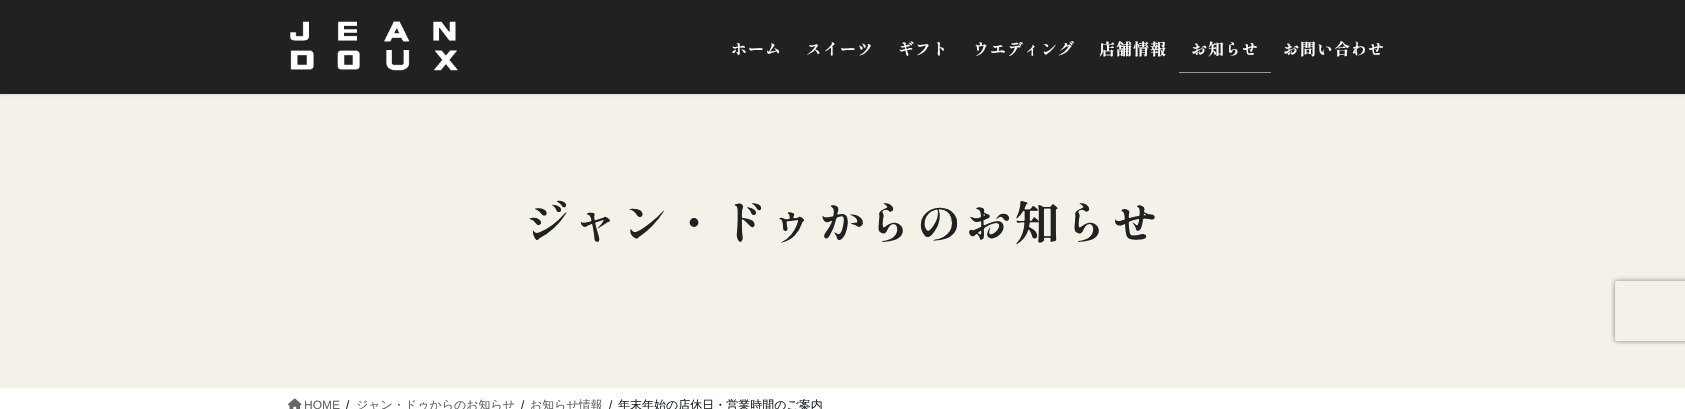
#include "include/core/SkBlurTypes.h"
#include "include/core/SkCanvas.h"
#include "include/core/SkData.h"
#include "include/core/SkFont.h"
#include "include/core/SkFontMgr.h"
#include "include/core/SkImage.h"
#include "include/core/SkMaskFilter.h"
#include "include/core/SkPaint.h"
#include "include/core/SkPathBuilder.h"
#include "include/core/SkTextBlob.h"
#include "include/effects/SkDashPathEffect.h"
#include "include/effects/SkGradientShader.h"
#include "include/utils/SkParsePath.h"

extern sk_sp<SkFontMgr> fontMgr;

static SkFont font(const char* family, int weight, float size, bool italic = false) {
    SkFontStyle style(weight, SkFontStyle::kNormal_Width,
        italic ? SkFontStyle::kItalic_Slant : SkFontStyle::kUpright_Slant);
    SkFont result(fontMgr->matchFamilyStyle(family, style), size);
    result.setSubpixel(true);
    return result;
}

static void drawLabel(SkCanvas* canvas, const char* s, float x, float y, const SkFont& font, SkColor color) {
    SkPaint ink(SkColor4f::FromColor(color));
    ink.setAntiAlias(true);
    canvas->drawString(s, x, y, font, ink);
}

static void drawTracked(SkCanvas* canvas, const char* s, float x, float y, const SkFont& font, const SkPaint& ink, float letter, float word) {
    std::vector<SkGlyphID> glyphs(font.countText(s, strlen(s), SkTextEncoding::kUTF8));
    std::vector<float> xs(glyphs.size());
    font.textToGlyphs(s, strlen(s), SkTextEncoding::kUTF8, glyphs);
    font.getXPos(glyphs, xs, x);
    float extra = 0;
    for (size_t i = 0; i < glyphs.size(); i++) {
        xs[i] += extra;
        extra += letter + word * (glyphs[i] == font.unicharToGlyph(' '));
    }
    canvas->drawTextBlob(SkTextBlob::MakeFromPosHGlyphs(glyphs, xs, y, font), 0, 0, ink);
}

static void fillRect(SkCanvas* canvas, float x, float y, float w, float h, SkColor color) {
    SkPaint ink(SkColor4f::FromColor(color));
    ink.setAntiAlias(true);
    canvas->drawRect(SkRect::MakeXYWH(x, y, w, h), ink);
}

static void drawPhoto(SkCanvas* canvas, const char* path, float x, float y, float w, float h) {
    auto image = SkImages::DeferredFromEncodedData(SkData::MakeFromFileName(path));
    canvas->drawImageRect(image, SkRect::MakeXYWH(x, y, w, h), SkSamplingOptions());
}

static SkPath parsePath(const char* data, bool evenOdd = false) {
    SkPath result = *SkParsePath::FromSVGString(data);
    if (evenOdd) result.setFillType(SkPathFillType::kEvenOdd);
    return result;
}

void draw(SkCanvas* canvas) {
    SkPaint paint;
    paint.setAntiAlias(true);
    canvas->clear(0xFFFFFFFF);
    fillRect(canvas, 0, 94, 1685, 294, 0xFFF4F1E8);
    paint.setColor(0x1A000000);
    paint.setMaskFilter(SkMaskFilter::MakeBlur(kNormal_SkBlurStyle, 1.5f));
    canvas->drawRect(SkRect::MakeXYWH(0, 1, 1685, 94), paint);
    paint.setMaskFilter(nullptr);
    fillRect(canvas, 0, 0, 1685, 94, 0xFF212121);
    drawPhoto(canvas, "assets/img1.png", 290, 21, 168, 50);
    SkFont font1 = font("Shippori Mincho B1", 700, 16);
    paint.setColor(0xFFFFFFFF);
    drawTracked(canvas, "ホーム", 731, 55, font1, paint, 1, 0);
    drawTracked(canvas, "スイーツ", 806, 55, font1, paint, 1, 0);
    drawTracked(canvas, "ギフト", 898, 55, font1, paint, 1, 0);
    drawTracked(canvas, "ウエディング", 973, 55, font1, paint, 1, 0);
    drawTracked(canvas, "店舗情報", 1099, 55, font1, paint, 1, 0);
    drawTracked(canvas, "お知らせ", 1191, 55, font1, paint, 1, 0);
    fillRect(canvas, 1179, 72, 92, 1, 0xFF999999);
    drawTracked(canvas, "お問い合わせ", 1283, 55, font1, paint, 1, 0);
    SkFont font2 = font("Shippori Mincho B1", 700, 46);
    paint.setColor(0xFF212121);
    drawTracked(canvas, "ジャン・ドゥからのお知らせ", 524, 240, font2, paint, 3, 0);
    canvas->save();
    canvas->clipPath(parsePath("M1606 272H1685V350H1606ZM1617 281H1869C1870 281 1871 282 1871 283V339C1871 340 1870 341 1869 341H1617C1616 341 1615 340 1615 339V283C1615 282 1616 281 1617 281Z", true), true);
    paint.setColor(0xFF808080);
    paint.setMaskFilter(SkMaskFilter::MakeBlur(kNormal_SkBlurStyle, 2.5f));
    canvas->drawRoundRect(SkRect::MakeXYWH(1615, 281, 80, 60), 2, 2, paint);
    paint.setMaskFilter(nullptr);
    canvas->restore();
    drawPhoto(canvas, "assets/img2.png", 288, 398, 14, 11);
    SkFont font3 = font("Liberation Sans", 400, 12);
    drawLabel(canvas, "HOME", 304, 409, font3, 0xFF666666);
    drawLabel(canvas, "/", 346, 409, font3, 0xFF212529);
    SkFont font4 = font("WenQuanYi Zen Hei", 500, 12);
    drawLabel(canvas, "ジャン・ドゥからのお知らせ", 356, 409, font4, 0xFF666666);
    drawLabel(canvas, "/", 521, 409, font3, 0xFF212529);
    drawLabel(canvas, "お知らせ情報", 530, 409, font4, 0xFF666666);
    drawLabel(canvas, "/", 609, 409, font3, 0xFF212529);
    drawLabel(canvas, "年末年始の店休日・営業時間のご案内", 618, 409, font4, 0xFF212529);
}
